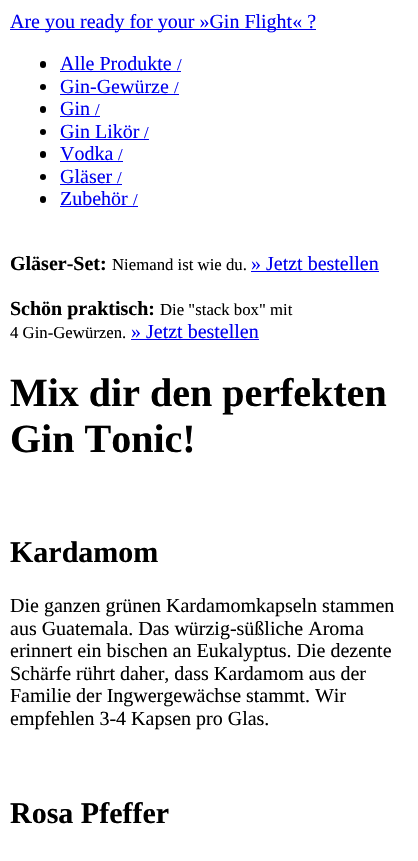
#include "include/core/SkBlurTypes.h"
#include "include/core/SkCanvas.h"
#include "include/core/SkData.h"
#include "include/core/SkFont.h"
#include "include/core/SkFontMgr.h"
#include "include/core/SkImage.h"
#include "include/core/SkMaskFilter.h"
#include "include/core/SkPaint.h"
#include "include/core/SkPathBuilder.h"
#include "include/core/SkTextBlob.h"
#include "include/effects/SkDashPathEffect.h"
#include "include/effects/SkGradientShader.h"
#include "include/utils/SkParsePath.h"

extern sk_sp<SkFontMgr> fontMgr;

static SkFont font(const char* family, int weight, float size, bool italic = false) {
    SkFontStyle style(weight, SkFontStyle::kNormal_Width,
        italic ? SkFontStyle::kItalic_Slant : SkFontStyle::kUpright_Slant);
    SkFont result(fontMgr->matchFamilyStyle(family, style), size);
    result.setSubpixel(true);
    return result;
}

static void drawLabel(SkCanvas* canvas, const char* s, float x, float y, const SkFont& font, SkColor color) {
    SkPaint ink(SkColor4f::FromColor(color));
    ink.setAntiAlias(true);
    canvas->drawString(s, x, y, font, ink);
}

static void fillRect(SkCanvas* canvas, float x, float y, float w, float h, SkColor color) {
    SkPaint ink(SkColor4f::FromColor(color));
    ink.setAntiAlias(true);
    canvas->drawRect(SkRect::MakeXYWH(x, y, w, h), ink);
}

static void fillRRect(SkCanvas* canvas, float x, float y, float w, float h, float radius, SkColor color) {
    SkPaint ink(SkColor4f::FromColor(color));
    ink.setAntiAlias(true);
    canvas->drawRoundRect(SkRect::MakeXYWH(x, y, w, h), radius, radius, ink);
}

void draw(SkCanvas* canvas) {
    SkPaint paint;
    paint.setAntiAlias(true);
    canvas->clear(0xFFFFFFFF);
    fillRect(canvas, 10, 29, 306, 1, 0xFF0000EE);
    SkFont font1 = font("Liberation Serif", 400, 20);
    drawLabel(canvas, "Are you ready for your »Gin Flight« ?", 10, 28, font1, 0xFF0000EE);
    fillRRect(canvas, 40, 61, 6, 7, 3, 0xFF000000);
    drawLabel(canvas, "Alle Produkte", 60, 70, font1, 0xFF0000EE);
    SkFont font2 = font("Liberation Serif", 400, 16.75f);
    drawLabel(canvas, "/", 177, 70, font2, 0xFF0000EE);
    fillRect(canvas, 60, 71, 121, 1, 0xFF0000EE);
    paint.setColor(0xFF000000);
    canvas->drawCircle(43, 87, 3, paint);
    drawLabel(canvas, "Gin-Gewürze", 60, 93, font1, 0xFF0000EE);
    drawLabel(canvas, "/", 174, 93, font2, 0xFF0000EE);
    fillRect(canvas, 60, 94, 119, 1, 0xFF0000EE);
    fillRRect(canvas, 40, 106, 6, 7, 3, 0xFF000000);
    drawLabel(canvas, "Gin", 60, 115, font1, 0xFF0000EE);
    drawLabel(canvas, "/", 95, 115, font2, 0xFF0000EE);
    fillRect(canvas, 60, 116, 40, 1, 0xFF0000EE);
    canvas->drawCircle(43, 132, 3, paint);
    drawLabel(canvas, "Gin Likör", 60, 138, font1, 0xFF0000EE);
    drawLabel(canvas, "/", 144, 138, font2, 0xFF0000EE);
    fillRect(canvas, 60, 139, 89, 1, 0xFF0000EE);
    fillRRect(canvas, 40, 151, 6, 7, 3, 0xFF000000);
    drawLabel(canvas, "Vodka", 60, 160, font1, 0xFF0000EE);
    drawLabel(canvas, "/", 118, 160, font2, 0xFF0000EE);
    fillRect(canvas, 60, 161, 63, 1, 0xFF0000EE);
    canvas->drawCircle(43, 177, 3, paint);
    drawLabel(canvas, "Gläser", 60, 183, font1, 0xFF0000EE);
    drawLabel(canvas, "/", 117, 183, font2, 0xFF0000EE);
    fillRect(canvas, 60, 184, 62, 1, 0xFF0000EE);
    fillRRect(canvas, 40, 196, 6, 7, 3, 0xFF000000);
    drawLabel(canvas, "Zubehör", 60, 205, font1, 0xFF0000EE);
    drawLabel(canvas, "/", 133, 205, font2, 0xFF0000EE);
    fillRect(canvas, 60, 206, 78, 1, 0xFF0000EE);
    SkFont font3 = font("Liberation Serif", 700, 20);
    drawLabel(canvas, "Gläser-Set:", 10, 270, font3, 0xFF000000);
    drawLabel(canvas, "Niemand ist wie du.", 112, 270, font2, 0xFF000000);
    drawLabel(canvas, "» Jetzt bestellen", 251, 270, font1, 0xFF0000EE);
    fillRect(canvas, 251, 271, 128, 1, 0xFF0000EE);
    drawLabel(canvas, "Schön praktisch:", 10, 315, font3, 0xFF000000);
    drawLabel(canvas, "Die \"stack box\" mit", 160, 315, font2, 0xFF000000);
    drawLabel(canvas, "4 Gin-Gewürzen.", 10, 338, font2, 0xFF000000);
    drawLabel(canvas, "» Jetzt bestellen", 131, 338, font1, 0xFF0000EE);
    fillRect(canvas, 131, 339, 128, 1, 0xFF0000EE);
    SkFont font4 = font("Liberation Serif", 700, 40);
    drawLabel(canvas, "Mix dir den perfekten", 10, 406, font4, 0xFF000000);
    drawLabel(canvas, "Gin Tonic!", 10, 452, font4, 0xFF000000);
    SkFont font5 = font("Liberation Serif", 700, 30);
    drawLabel(canvas, "Kardamom", 10, 562, font5, 0xFF000000);
    drawLabel(canvas, "Die ganzen grünen Kardamomkapseln stammen", 10, 612, font1, 0xFF000000);
    drawLabel(canvas, "aus Guatemala. Das würzig-süßliche Aroma", 10, 635, font1, 0xFF000000);
    drawLabel(canvas, "erinnert ein bischen an Eukalyptus. Die dezente", 10, 657, font1, 0xFF000000);
    drawLabel(canvas, "Schärfe rührt daher, dass Kardamom aus der", 10, 680, font1, 0xFF000000);
    drawLabel(canvas, "Familie der Ingwergewächse stammt. Wir", 10, 702, font1, 0xFF000000);
    drawLabel(canvas, "empfehlen 3-4 Kapsen pro Glas.", 10, 725, font1, 0xFF000000);
    drawLabel(canvas, "Rosa Pfeffer", 10, 823, font5, 0xFF000000);
}
